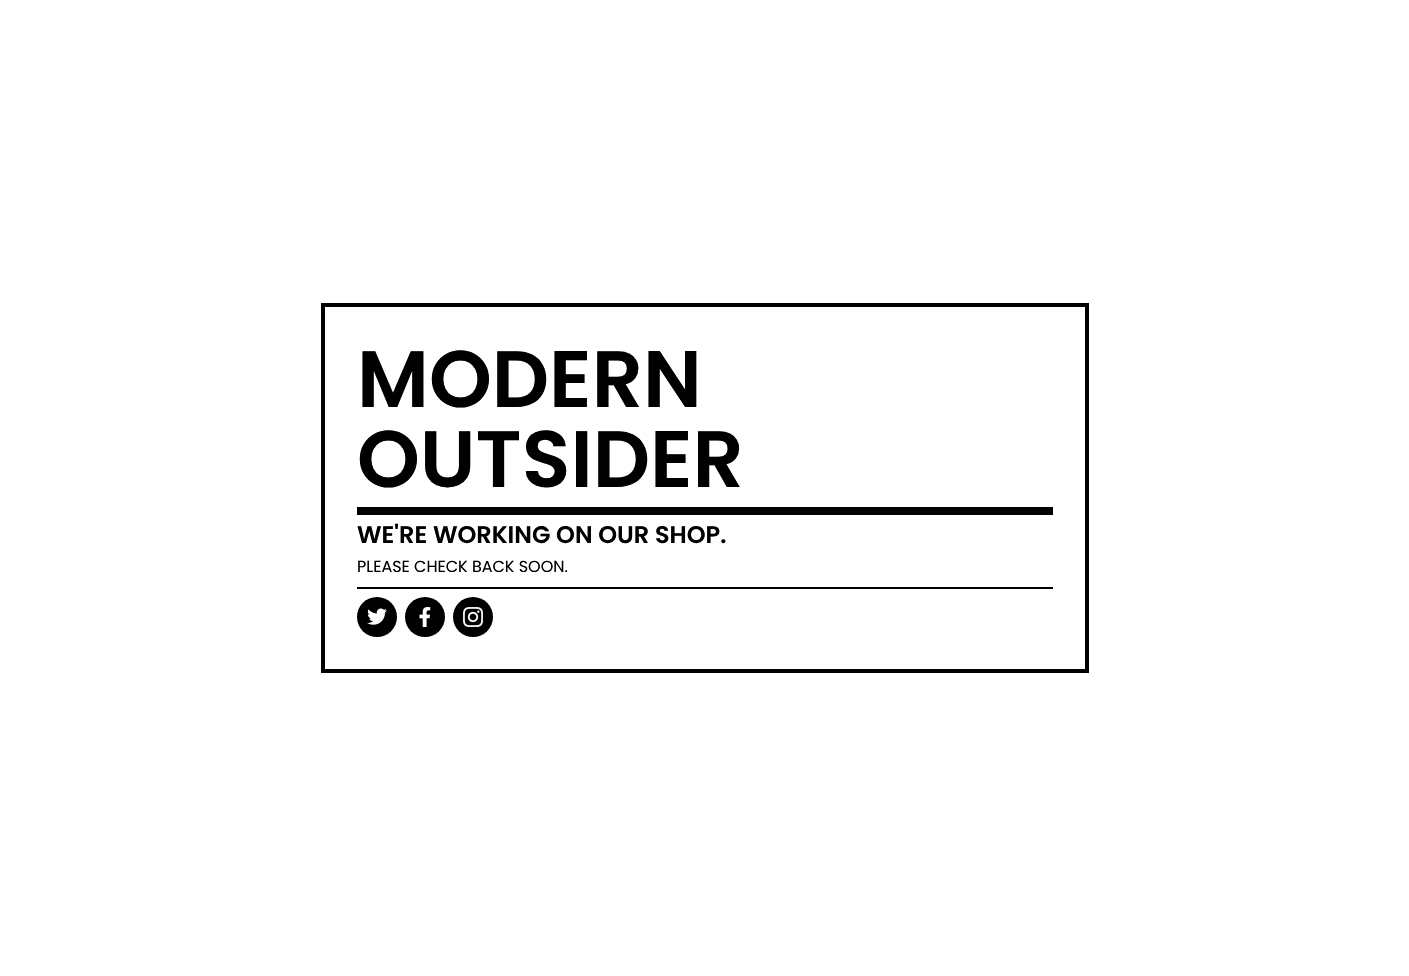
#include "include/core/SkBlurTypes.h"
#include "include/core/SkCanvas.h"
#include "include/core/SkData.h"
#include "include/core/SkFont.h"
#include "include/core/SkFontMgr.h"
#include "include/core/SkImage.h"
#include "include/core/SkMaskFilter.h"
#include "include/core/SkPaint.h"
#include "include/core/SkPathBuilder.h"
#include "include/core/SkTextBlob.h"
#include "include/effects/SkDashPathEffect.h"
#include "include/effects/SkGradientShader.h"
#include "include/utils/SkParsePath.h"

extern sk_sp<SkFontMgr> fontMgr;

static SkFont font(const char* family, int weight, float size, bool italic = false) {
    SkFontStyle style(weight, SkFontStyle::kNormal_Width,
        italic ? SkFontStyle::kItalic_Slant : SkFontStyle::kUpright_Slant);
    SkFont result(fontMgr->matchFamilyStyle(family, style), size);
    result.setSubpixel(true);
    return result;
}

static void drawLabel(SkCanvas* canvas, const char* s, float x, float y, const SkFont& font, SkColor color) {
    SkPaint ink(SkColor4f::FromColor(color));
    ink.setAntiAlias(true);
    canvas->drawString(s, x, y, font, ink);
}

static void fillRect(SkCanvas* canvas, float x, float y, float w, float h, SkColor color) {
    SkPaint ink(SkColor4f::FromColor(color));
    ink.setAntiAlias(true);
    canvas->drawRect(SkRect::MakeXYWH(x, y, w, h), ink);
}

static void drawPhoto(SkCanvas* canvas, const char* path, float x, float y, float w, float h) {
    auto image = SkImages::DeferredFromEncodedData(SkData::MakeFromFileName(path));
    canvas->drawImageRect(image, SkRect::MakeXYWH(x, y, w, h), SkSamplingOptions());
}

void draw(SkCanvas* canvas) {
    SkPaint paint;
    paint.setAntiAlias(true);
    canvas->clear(0xFFFFFFFF);
    paint.setStroke(true);
    paint.setStrokeWidth(4);
    paint.setColor(0xFF000000);
    canvas->drawRect(SkRect::MakeXYWH(323, 305, 764, 366), paint);
    fillRect(canvas, 357, 507, 696, 8, 0xFF000000);
    SkFont font1 = font("Poppins", 600, 80);
    drawLabel(canvas, "MODERN", 357, 407, font1, 0xFF000000);
    drawLabel(canvas, "OUTSIDER", 357, 487, font1, 0xFF000000);
    SkFont font2 = font("Poppins", 600, 24);
    drawLabel(canvas, "WE'RE WORKING ON OUR SHOP.", 357, 543, font2, 0xFF000000);
    SkFont font3 = font("Poppins", 400, 16);
    drawLabel(canvas, "PLEASE CHECK BACK SOON.", 357, 572, font3, 0xFF000000);
    fillRect(canvas, 357, 587, 696, 2, 0xFF000000);
    paint.setStroke(false);
    canvas->drawCircle(377, 617, 20, paint);
    drawPhoto(canvas, "assets/img1.png", 367, 608, 20, 17);
    canvas->drawCircle(425, 617, 20, paint);
    drawPhoto(canvas, "assets/img2.png", 419, 607, 12, 20);
    canvas->drawCircle(473, 617, 20, paint);
    drawPhoto(canvas, "assets/img3.png", 463, 607, 20, 20);
}
